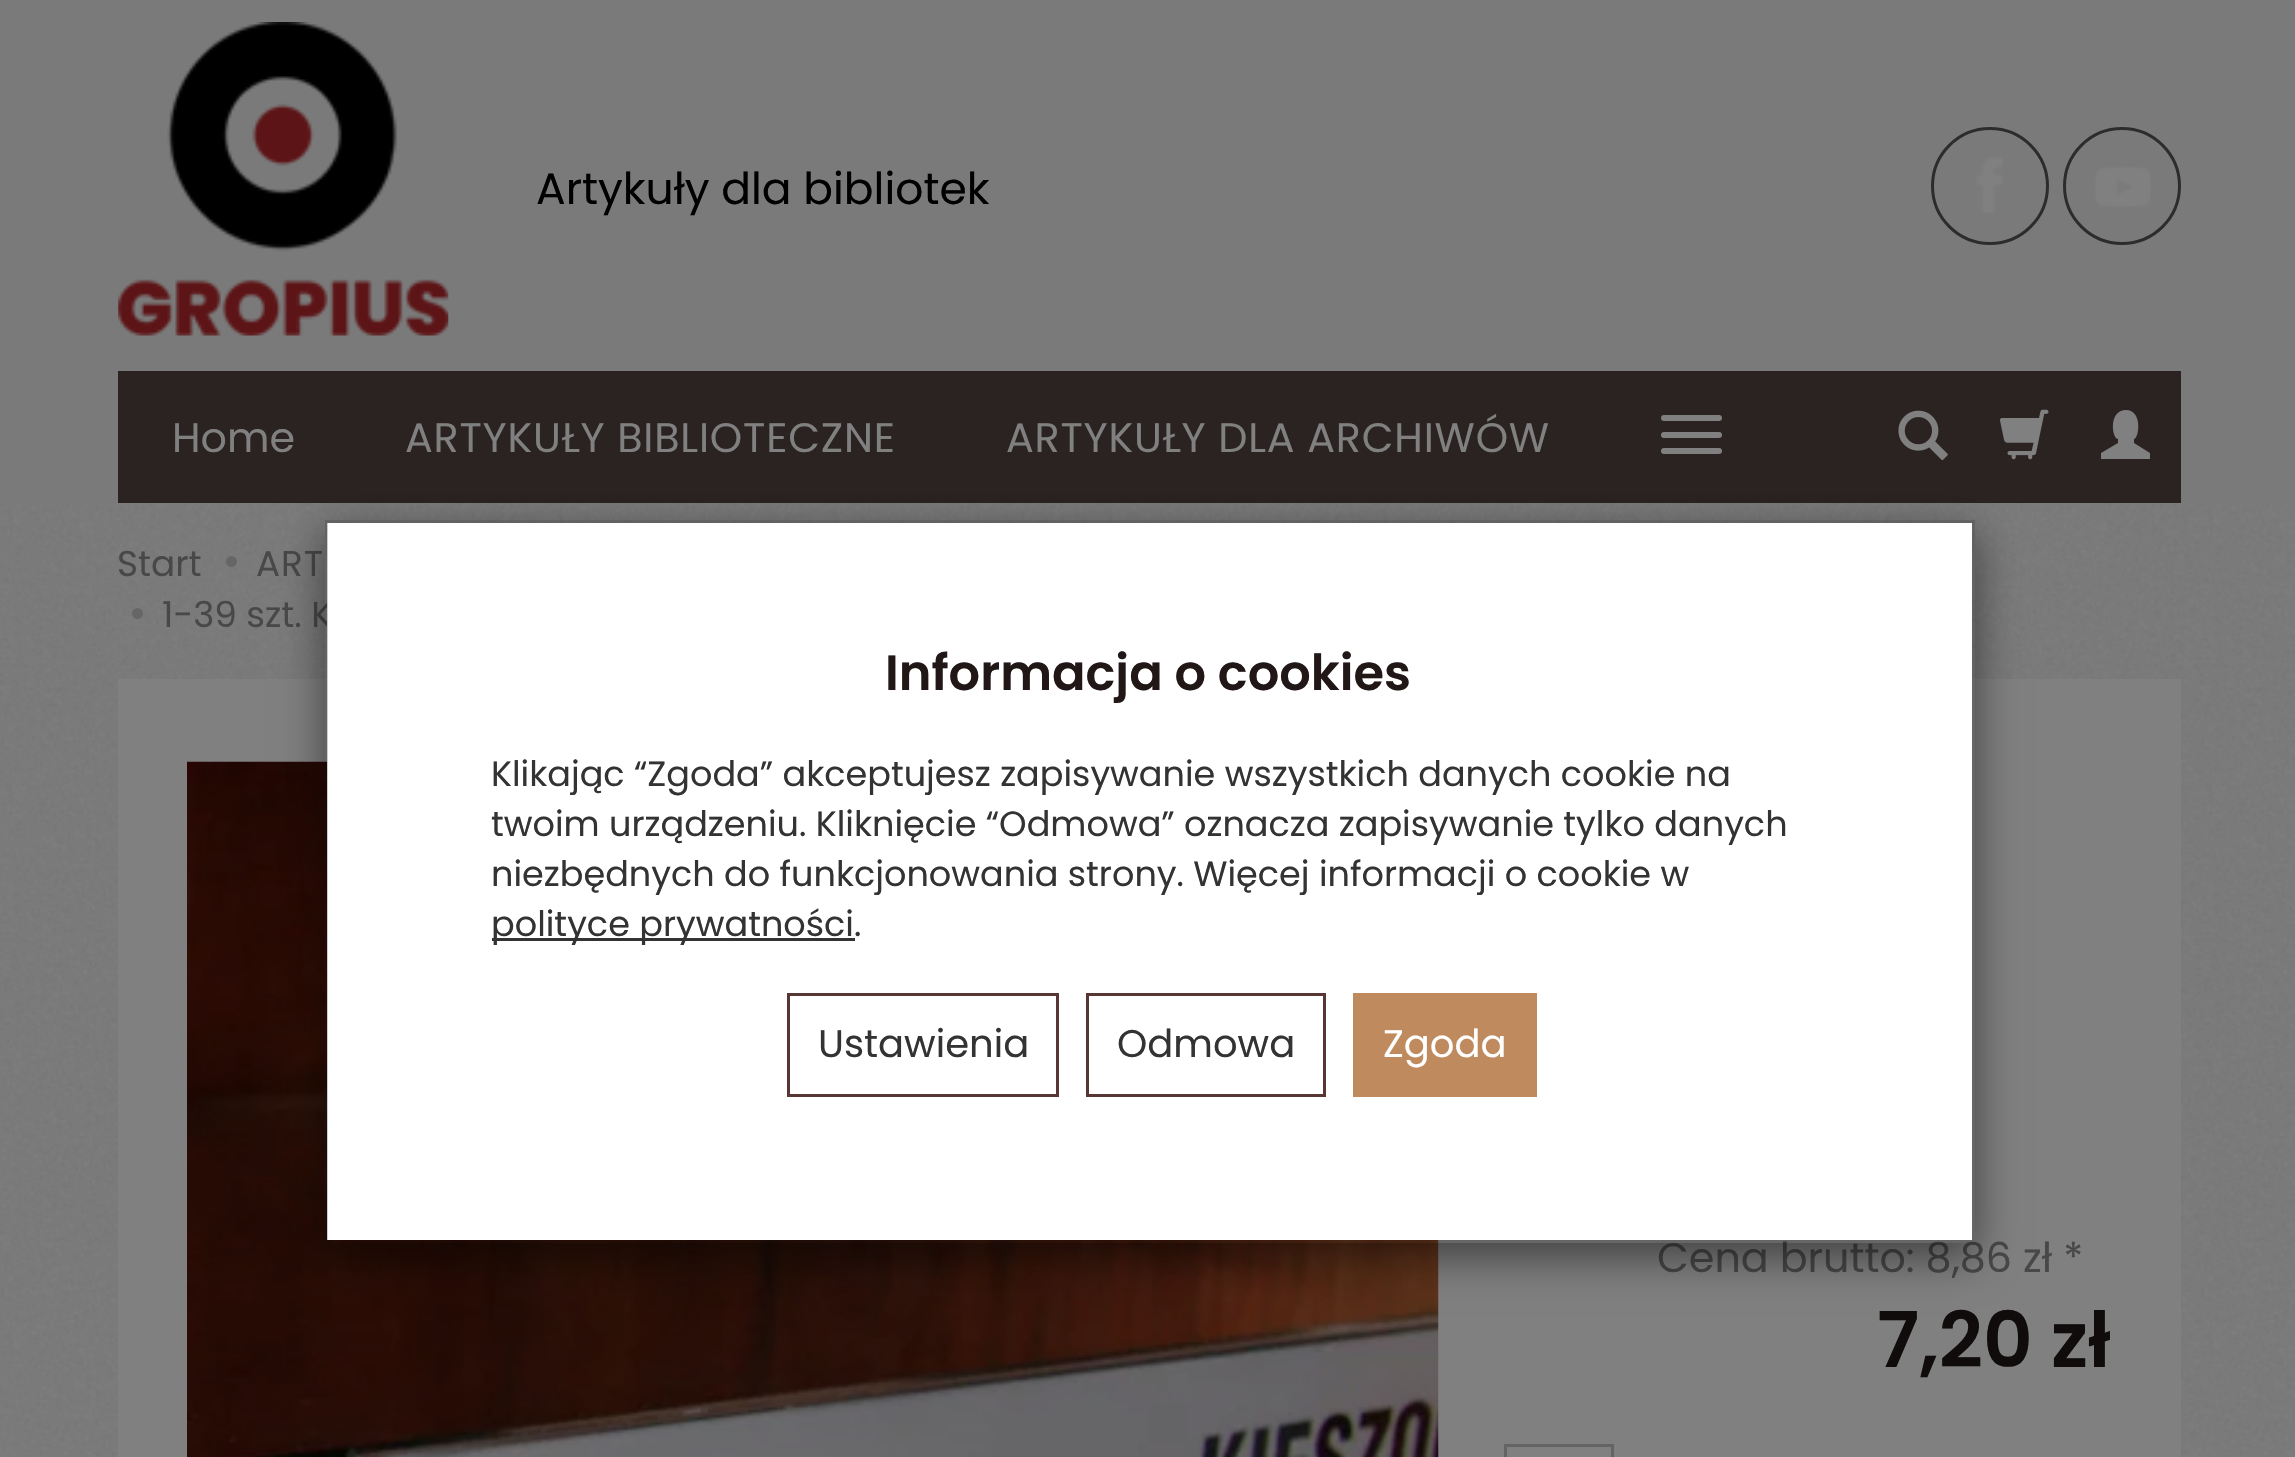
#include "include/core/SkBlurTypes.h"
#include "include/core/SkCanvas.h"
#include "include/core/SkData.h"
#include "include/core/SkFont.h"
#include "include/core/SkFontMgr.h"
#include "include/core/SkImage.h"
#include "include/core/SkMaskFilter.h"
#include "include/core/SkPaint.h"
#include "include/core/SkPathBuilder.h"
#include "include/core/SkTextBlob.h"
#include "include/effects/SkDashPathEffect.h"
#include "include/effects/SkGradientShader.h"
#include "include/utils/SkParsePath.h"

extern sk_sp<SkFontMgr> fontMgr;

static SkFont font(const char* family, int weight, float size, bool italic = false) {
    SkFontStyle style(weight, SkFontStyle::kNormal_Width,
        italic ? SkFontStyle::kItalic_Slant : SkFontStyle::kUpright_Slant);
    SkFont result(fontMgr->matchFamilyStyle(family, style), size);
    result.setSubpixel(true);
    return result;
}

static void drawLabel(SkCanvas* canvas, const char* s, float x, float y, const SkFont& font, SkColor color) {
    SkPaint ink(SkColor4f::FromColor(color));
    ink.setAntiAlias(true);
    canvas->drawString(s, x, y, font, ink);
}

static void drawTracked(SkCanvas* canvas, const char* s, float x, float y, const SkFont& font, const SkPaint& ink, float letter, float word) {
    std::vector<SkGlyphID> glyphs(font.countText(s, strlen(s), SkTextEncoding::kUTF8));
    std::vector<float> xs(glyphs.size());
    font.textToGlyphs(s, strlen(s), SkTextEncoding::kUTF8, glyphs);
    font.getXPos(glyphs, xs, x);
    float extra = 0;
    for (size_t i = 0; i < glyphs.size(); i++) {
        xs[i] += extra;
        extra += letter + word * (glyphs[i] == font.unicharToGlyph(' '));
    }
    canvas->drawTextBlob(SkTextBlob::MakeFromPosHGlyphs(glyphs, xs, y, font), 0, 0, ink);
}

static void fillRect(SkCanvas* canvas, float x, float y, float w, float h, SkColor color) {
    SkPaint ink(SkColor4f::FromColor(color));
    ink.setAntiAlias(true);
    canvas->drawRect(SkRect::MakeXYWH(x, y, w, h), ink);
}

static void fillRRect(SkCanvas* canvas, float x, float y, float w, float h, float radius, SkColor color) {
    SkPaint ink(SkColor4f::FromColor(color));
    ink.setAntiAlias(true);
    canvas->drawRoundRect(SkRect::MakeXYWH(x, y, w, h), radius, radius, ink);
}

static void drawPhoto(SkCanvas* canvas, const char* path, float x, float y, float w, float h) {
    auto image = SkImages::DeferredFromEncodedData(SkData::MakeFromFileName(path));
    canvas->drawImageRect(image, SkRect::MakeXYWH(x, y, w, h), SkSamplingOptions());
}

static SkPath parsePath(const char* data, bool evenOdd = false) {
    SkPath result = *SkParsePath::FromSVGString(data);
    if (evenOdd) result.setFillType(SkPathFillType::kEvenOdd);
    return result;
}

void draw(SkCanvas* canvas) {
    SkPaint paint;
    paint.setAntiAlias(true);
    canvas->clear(0xFFFFFFFF);
    drawPhoto(canvas, "assets/img1.png", 0, 503, 2295, 954);
    fillRect(canvas, 0, 0, 2295, 503, 0xFF7A7A7A);
    drawPhoto(canvas, "assets/img2.png", 118, 22, 331, 314);
    SkFont font1 = font("Poppins", 400, 44);
    drawLabel(canvas, "Artykuły dla bibliotek", 536, 204, font1, 0xFF000000);
    paint.setStroke(true);
    paint.setStrokeWidth(3);
    paint.setColor(0xFF2E2B2B);
    canvas->drawCircle(1990, 186, 57.5f, paint);
    drawPhoto(canvas, "assets/img3.png", 1976, 157, 27, 56);
    canvas->drawCircle(2122, 186, 57.5f, paint);
    drawPhoto(canvas, "assets/img4.png", 2095, 167, 56, 40);
    fillRect(canvas, 118, 371, 2063, 132, 0xFF2A2321);
    SkFont font2 = font("Poppins", 400, 41.25f);
    drawLabel(canvas, "Home", 172, 452, font2, 0xFF808080);
    paint.setStroke(false);
    paint.setColor(0xFF808080);
    drawTracked(canvas, "ARTYKUŁY BIBLIOTECZNE", 405, 452, font2, paint, 0.8f, 0);
    drawTracked(canvas, "ARTYKUŁY DLA ARCHIWÓW", 1006, 452, font2, paint, 0.8f, 0);
    fillRRect(canvas, 1661, 415, 61, 6, 3, 0xFF808080);
    fillRRect(canvas, 1661, 432, 61, 6, 3, 0xFF808080);
    fillRRect(canvas, 1661, 448, 61, 6, 3, 0xFF808080);
    drawPhoto(canvas, "assets/img5.png", 1898, 410, 50, 51);
    drawPhoto(canvas, "assets/img6.png", 2000, 409, 49, 51);
    canvas->drawPath(parsePath("M2101 459V453L2118 443V439C2112 439 2108 410 2126 410C2143 410 2139 439 2134 439V443L2150 453V459Z"), paint);
    SkFont font3 = font("Poppins", 400, 35.75f);
    drawLabel(canvas, "Start", 117, 576, font3, 0xFF484848);
    paint.setColor(0xFF666666);
    canvas->drawCircle(231.5f, 561.5f, 5.5f, paint);
    paint.setColor(0xFF484848);
    drawTracked(canvas, "ART", 256, 576, font3, paint, 1, 0);
    paint.setColor(0xFF666666);
    canvas->drawCircle(137.5f, 613.5f, 5.5f, paint);
    drawLabel(canvas, "1-39 szt. K", 162, 627, font3, 0xFF484848);
    fillRect(canvas, 118, 679, 2063, 778, 0xFF808080);
    drawPhoto(canvas, "assets/img7.png", 187, 761, 1252, 696);
    drawLabel(canvas, "Cena brutto: 8,86 zł *", 1657, 1272, font2, 0xFF484848);
    SkFont font4 = font("Poppins", 600, 77);
    drawLabel(canvas, "7,20 zł", 1877, 1367, font4, 0xFF110C0C);
    paint.setStroke(true);
    paint.setColor(0xFF646464);
    canvas->drawRect(SkRect::MakeXYWH(1505.5f, 1445.5f, 107, 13), paint);
    canvas->save();
    canvas->clipPath(parsePath("M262 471H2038V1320H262ZM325 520H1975V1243H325Z", true), true);
    paint.setStroke(false);
    paint.setColor(0x80000000);
    paint.setMaskFilter(SkMaskFilter::MakeBlur(kNormal_SkBlurStyle, 20.5f));
    canvas->drawRect(SkRect::MakeXYWH(325, 534, 1650, 723), paint);
    paint.setMaskFilter(nullptr);
    canvas->restore();
    fillRect(canvas, 327, 523, 1645, 717, 0xFFFFFFFF);
    paint.setStroke(true);
    paint.setColor(0x33000000);
    canvas->drawRect(SkRect::MakeXYWH(326.5f, 521.5f, 1647, 720), paint);
    SkFont font5 = font("Poppins", 600, 49.5f);
    drawLabel(canvas, "Informacja o cookies", 885, 690, font5, 0xFF221717);
    SkFont font6 = font("Poppins", 400, 35.05f);
    drawLabel(canvas, "Klikając “Zgoda” akceptujesz zapisywanie wszystkich danych cookie na", 491, 786, font6, 0xFF333333);
    drawLabel(canvas, "twoim urządzeniu. Kliknięcie “Odmowa” oznacza zapisywanie tylko danych", 491, 836, font6, 0xFF333333);
    drawLabel(canvas, "niezbędnych do funkcjonowania strony. Więcej informacji o cookie w", 491, 886, font6, 0xFF333333);
    fillRect(canvas, 492, 938, 363, 3, 0xFF333333);
    drawLabel(canvas, "polityce prywatności.", 491, 936, font6, 0xFF333333);
    paint.setColor(0xFF583634);
    canvas->drawRect(SkRect::MakeXYWH(788.5f, 994.5f, 269, 101), paint);
    SkFont font7 = font("Poppins", 400, 38.5f);
    drawLabel(canvas, "Ustawienia", 818, 1057, font7, 0xFF333333);
    canvas->drawRect(SkRect::MakeXYWH(1087.5f, 994.5f, 237, 101), paint);
    drawLabel(canvas, "Odmowa", 1117, 1057, font7, 0xFF333333);
    fillRect(canvas, 1353, 993, 184, 104, 0xFFC08A5F);
    drawLabel(canvas, "Zgoda", 1383, 1057, font7, 0xFFFFFFFF);
}
